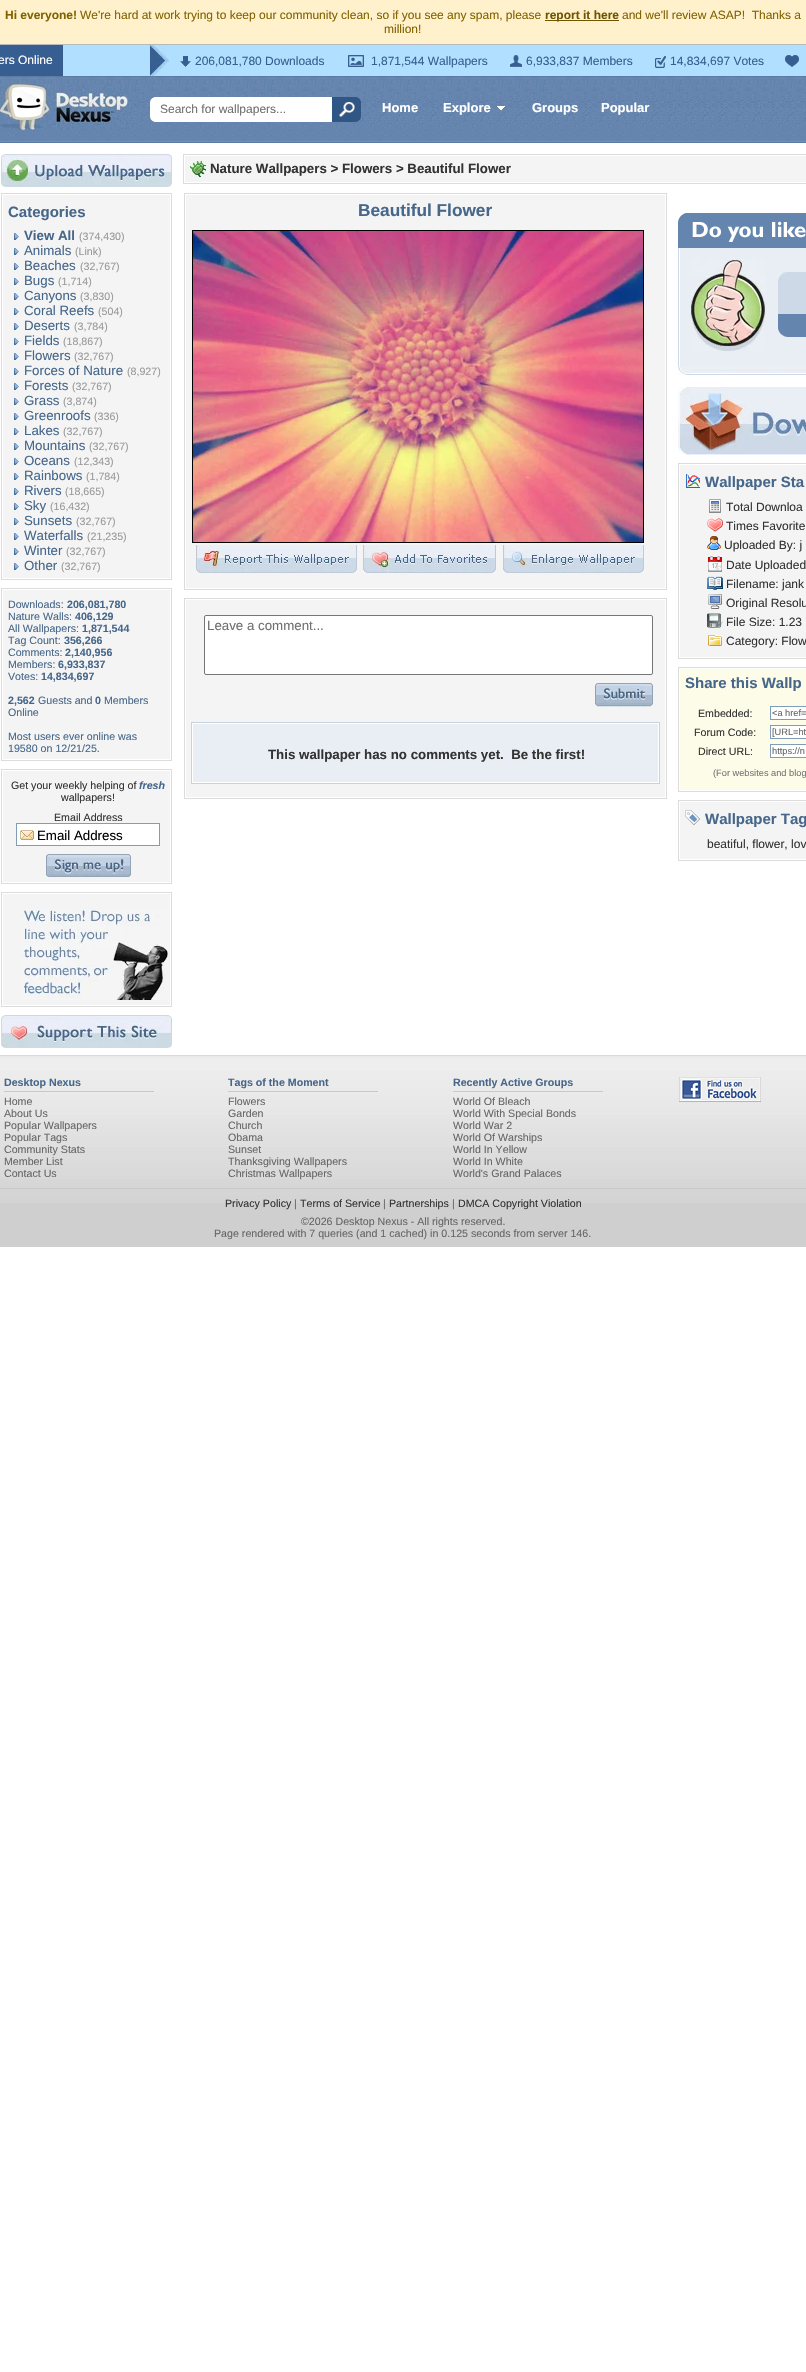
#include "include/core/SkBlurTypes.h"
#include "include/core/SkCanvas.h"
#include "include/core/SkData.h"
#include "include/core/SkFont.h"
#include "include/core/SkFontMgr.h"
#include "include/core/SkImage.h"
#include "include/core/SkMaskFilter.h"
#include "include/core/SkPaint.h"
#include "include/core/SkPathBuilder.h"
#include "include/core/SkTextBlob.h"
#include "include/effects/SkDashPathEffect.h"
#include "include/effects/SkGradientShader.h"
#include "include/utils/SkParsePath.h"

extern sk_sp<SkFontMgr> fontMgr;

static SkFont font(const char* family, int weight, float size, bool italic = false) {
    SkFontStyle style(weight, SkFontStyle::kNormal_Width,
        italic ? SkFontStyle::kItalic_Slant : SkFontStyle::kUpright_Slant);
    SkFont result(fontMgr->matchFamilyStyle(family, style), size);
    result.setSubpixel(true);
    return result;
}

static void drawLabel(SkCanvas* canvas, const char* s, float x, float y, const SkFont& font, SkColor color) {
    SkPaint ink(SkColor4f::FromColor(color));
    ink.setAntiAlias(true);
    canvas->drawString(s, x, y, font, ink);
}

static void fillRect(SkCanvas* canvas, float x, float y, float w, float h, SkColor color) {
    SkPaint ink(SkColor4f::FromColor(color));
    ink.setAntiAlias(true);
    canvas->drawRect(SkRect::MakeXYWH(x, y, w, h), ink);
}

static void drawPhoto(SkCanvas* canvas, const char* path, float x, float y, float w, float h) {
    auto image = SkImages::DeferredFromEncodedData(SkData::MakeFromFileName(path));
    canvas->drawImageRect(image, SkRect::MakeXYWH(x, y, w, h), SkSamplingOptions());
}

static SkPath parsePath(const char* data, bool evenOdd = false) {
    SkPath result = *SkParsePath::FromSVGString(data);
    if (evenOdd) result.setFillType(SkPathFillType::kEvenOdd);
    return result;
}

void draw(SkCanvas* canvas) {
    SkPaint paint;
    paint.setAntiAlias(true);
    canvas->clear(0xFFFFFFFF);
    fillRect(canvas, 0, 0, 806, 44, 0xFFFFF1CB);
    SkFont font1 = font("Liberation Sans", 700, 12);
    drawLabel(canvas, "Hi everyone!", 5, 19, font1, 0xFF826200);
    SkFont font2 = font("Liberation Sans", 400, 12);
    drawLabel(canvas, "We're hard at work trying to keep our community clean, so if you see any spam, please", 80, 19, font2, 0xFF826200);
    fillRect(canvas, 545, 20, 74, 1, 0xFF705500);
    drawLabel(canvas, "report it here", 545, 19, font1, 0xFF705500);
    drawLabel(canvas, "and we'll review ASAP!  Thanks a", 622, 19, font2, 0xFF826200);
    drawLabel(canvas, "million!", 384, 33, font2, 0xFF826200);
    fillRect(canvas, 63, 45, 743, 31, 0xFFB1DFFF);
    fillRect(canvas, 0, 44, 806, 1, 0xFFB6BAC0);
    fillRect(canvas, 0, 45, 63, 31, 0xFF375E90);
    drawLabel(canvas, "ers Online", -2, 64, font2, 0xFFFFFFFF);
    drawPhoto(canvas, "assets/img1.png", 150, 45, 19, 31);
    drawPhoto(canvas, "assets/img2.png", 180, 56, 11, 11);
    drawLabel(canvas, "206,081,780 Downloads", 195, 65, font2, 0xFF375E90);
    drawPhoto(canvas, "assets/img3.png", 348, 55, 16, 12);
    drawLabel(canvas, "1,871,544 Wallpapers", 371, 65, font2, 0xFF375E90);
    drawPhoto(canvas, "assets/img4.png", 510, 55, 12, 12);
    drawLabel(canvas, "6,933,837 Members", 526, 65, font2, 0xFF375E90);
    drawPhoto(canvas, "assets/img5.png", 655, 56, 11, 12);
    drawLabel(canvas, "14,834,697 Votes", 670, 65, font2, 0xFF375E90);
    drawPhoto(canvas, "assets/img6.png", 785, 55, 14, 12);
    drawPhoto(canvas, "assets/img7.png", 0, 76, 806, 67);
    drawPhoto(canvas, "assets/img8.png", 0, 84, 128, 46);
    paint.setColor(0xFFFFFFFF);
    canvas->drawPath(parsePath("M156 97H348V122H156C152.5 122 150 119.5 150 116V103C150 99.5 152.5 97 156 97Z"), paint);
    drawLabel(canvas, "Search for wallpapers...", 160, 113, font2, 0xFF707070);
    paint.setColor(0xFF305686);
    canvas->drawPath(parsePath("M332 97H355C358.5 97 361 99.5 361 103V116C361 119.5 358.5 122 355 122H332Z"), paint);
    drawPhoto(canvas, "assets/img9.png", 339, 102, 16, 15);
    SkFont font3 = font("Liberation Sans", 700, 13);
    drawLabel(canvas, "Home", 382, 112, font3, 0xFFFFFFFF);
    drawLabel(canvas, "Explore", 443, 112, font3, 0xFFFFFFFF);
    drawPhoto(canvas, "assets/img10.png", 496, 106, 10, 5);
    drawLabel(canvas, "Groups", 532, 112, font3, 0xFFFFFFFF);
    drawLabel(canvas, "Popular", 601, 112, font3, 0xFFFFFFFF);
    drawPhoto(canvas, "assets/img11.png", 1, 154, 171, 33);
    paint.setStroke(true);
    paint.setStrokeWidth(1);
    paint.setColor(0xFFDCDCDC);
    canvas->drawRect(SkRect::MakeXYWH(1.5f, 193.5f, 170, 386), paint);
    fillRect(canvas, 3, 195, 167, 383, 0xFFF4F4F4);
    SkFont font4 = font("Liberation Sans", 700, 15);
    drawLabel(canvas, "Categories", 8, 217, font4, 0xFF46678A);
    drawPhoto(canvas, "assets/img12.png", 14, 233, 5, 7);
    SkFont font5 = font("Liberation Sans", 700, 13.3f);
    drawLabel(canvas, "View All", 24, 240, font5, 0xFF46678A);
    SkFont font6 = font("Liberation Sans", 400, 10.65f);
    drawLabel(canvas, "(374,430)", 79, 240, font6, 0xFF999999);
    drawPhoto(canvas, "assets/img12.png", 14, 248, 5, 7);
    SkFont font7 = font("Liberation Sans", 400, 13.3f);
    drawLabel(canvas, "Animals", 24, 255, font7, 0xFF46678A);
    drawLabel(canvas, "(Link)", 75, 255, font6, 0xFF999999);
    drawPhoto(canvas, "assets/img12.png", 14, 263, 5, 7);
    drawLabel(canvas, "Beaches", 24, 270, font7, 0xFF46678A);
    drawLabel(canvas, "(32,767)", 80, 270, font6, 0xFF999999);
    drawPhoto(canvas, "assets/img12.png", 14, 278, 5, 7);
    drawLabel(canvas, "Bugs", 24, 285, font7, 0xFF46678A);
    drawLabel(canvas, "(1,714)", 58, 285, font6, 0xFF999999);
    drawPhoto(canvas, "assets/img12.png", 14, 293, 5, 7);
    drawLabel(canvas, "Canyons", 24, 300, font7, 0xFF46678A);
    drawLabel(canvas, "(3,830)", 80, 300, font6, 0xFF999999);
    drawPhoto(canvas, "assets/img12.png", 14, 308, 5, 7);
    drawLabel(canvas, "Coral Reefs", 24, 315, font7, 0xFF46678A);
    drawLabel(canvas, "(504)", 98, 315, font6, 0xFF999999);
    drawPhoto(canvas, "assets/img12.png", 14, 323, 5, 7);
    drawLabel(canvas, "Deserts", 24, 330, font7, 0xFF46678A);
    drawLabel(canvas, "(3,784)", 74, 330, font6, 0xFF999999);
    drawPhoto(canvas, "assets/img12.png", 14, 338, 5, 7);
    drawLabel(canvas, "Fields", 24, 345, font7, 0xFF46678A);
    drawLabel(canvas, "(18,867)", 63, 345, font6, 0xFF999999);
    drawPhoto(canvas, "assets/img12.png", 14, 353, 5, 7);
    drawLabel(canvas, "Flowers", 24, 360, font7, 0xFF46678A);
    drawLabel(canvas, "(32,767)", 74, 360, font6, 0xFF999999);
    drawPhoto(canvas, "assets/img12.png", 14, 368, 5, 7);
    drawLabel(canvas, "Forces of Nature", 24, 375, font7, 0xFF46678A);
    drawLabel(canvas, "(8,927)", 127, 375, font6, 0xFF999999);
    drawPhoto(canvas, "assets/img12.png", 14, 383, 5, 7);
    drawLabel(canvas, "Forests", 24, 390, font7, 0xFF46678A);
    drawLabel(canvas, "(32,767)", 72, 390, font6, 0xFF999999);
    drawPhoto(canvas, "assets/img12.png", 14, 398, 5, 7);
    drawLabel(canvas, "Grass", 24, 405, font7, 0xFF46678A);
    drawLabel(canvas, "(3,874)", 63, 405, font6, 0xFF999999);
    drawPhoto(canvas, "assets/img12.png", 14, 413, 5, 7);
    drawLabel(canvas, "Greenroofs", 24, 420, font7, 0xFF46678A);
    drawLabel(canvas, "(336)", 94, 420, font6, 0xFF999999);
    drawPhoto(canvas, "assets/img12.png", 14, 428, 5, 7);
    drawLabel(canvas, "Lakes", 24, 435, font7, 0xFF46678A);
    drawLabel(canvas, "(32,767)", 63, 435, font6, 0xFF999999);
    drawPhoto(canvas, "assets/img12.png", 14, 443, 5, 7);
    drawLabel(canvas, "Mountains", 24, 450, font7, 0xFF46678A);
    drawLabel(canvas, "(32,767)", 89, 450, font6, 0xFF999999);
    drawPhoto(canvas, "assets/img12.png", 14, 458, 5, 7);
    drawLabel(canvas, "Oceans", 24, 465, font7, 0xFF46678A);
    drawLabel(canvas, "(12,343)", 74, 465, font6, 0xFF999999);
    drawPhoto(canvas, "assets/img12.png", 14, 473, 5, 7);
    drawLabel(canvas, "Rainbows", 24, 480, font7, 0xFF46678A);
    drawLabel(canvas, "(1,784)", 86, 480, font6, 0xFF999999);
    drawPhoto(canvas, "assets/img12.png", 14, 488, 5, 7);
    drawLabel(canvas, "Rivers", 24, 495, font7, 0xFF46678A);
    drawLabel(canvas, "(18,665)", 65, 495, font6, 0xFF999999);
    drawPhoto(canvas, "assets/img12.png", 14, 503, 5, 7);
    drawLabel(canvas, "Sky", 24, 510, font7, 0xFF46678A);
    drawLabel(canvas, "(16,432)", 50, 510, font6, 0xFF999999);
    drawPhoto(canvas, "assets/img12.png", 14, 518, 5, 7);
    drawLabel(canvas, "Sunsets", 24, 525, font7, 0xFF46678A);
    drawLabel(canvas, "(32,767)", 76, 525, font6, 0xFF999999);
    drawPhoto(canvas, "assets/img12.png", 14, 533, 5, 7);
    drawLabel(canvas, "Waterfalls", 24, 540, font7, 0xFF46678A);
    drawLabel(canvas, "(21,235)", 87, 540, font6, 0xFF999999);
    drawPhoto(canvas, "assets/img12.png", 14, 548, 5, 7);
    drawLabel(canvas, "Winter", 24, 555, font7, 0xFF46678A);
    drawLabel(canvas, "(32,767)", 66, 555, font6, 0xFF999999);
    drawPhoto(canvas, "assets/img12.png", 14, 563, 5, 7);
    drawLabel(canvas, "Other", 24, 570, font7, 0xFF46678A);
    drawLabel(canvas, "(32,767)", 61, 570, font6, 0xFF999999);
    canvas->drawRect(SkRect::MakeXYWH(1.5f, 588.5f, 170, 172), paint);
    fillRect(canvas, 3, 590, 167, 169, 0xFFF4F4F4);
    drawLabel(canvas, "Downloads:", 8, 608, font6, 0xFF46678A);
    SkFont font8 = font("Liberation Sans", 700, 10.65f);
    drawLabel(canvas, "206,081,780", 67, 608, font8, 0xFF46678A);
    drawLabel(canvas, "Nature Walls:", 8, 620, font6, 0xFF46678A);
    drawLabel(canvas, "406,129", 75, 620, font8, 0xFF46678A);
    drawLabel(canvas, "All Wallpapers:", 8, 632, font6, 0xFF46678A);
    drawLabel(canvas, "1,871,544", 82, 632, font8, 0xFF46678A);
    drawLabel(canvas, "Tag Count:", 8, 644, font6, 0xFF46678A);
    drawLabel(canvas, "356,266", 64, 644, font8, 0xFF46678A);
    drawLabel(canvas, "Comments:", 8, 656, font6, 0xFF46678A);
    drawLabel(canvas, "2,140,956", 65, 656, font8, 0xFF46678A);
    drawLabel(canvas, "Members:", 8, 668, font6, 0xFF46678A);
    drawLabel(canvas, "6,933,837", 58, 668, font8, 0xFF46678A);
    drawLabel(canvas, "Votes:", 8, 680, font6, 0xFF46678A);
    drawLabel(canvas, "14,834,697", 41, 680, font8, 0xFF46678A);
    drawLabel(canvas, "2,562", 8, 704, font8, 0xFF46678A);
    drawLabel(canvas, "Guests and", 38, 704, font6, 0xFF46678A);
    drawLabel(canvas, "0", 95, 704, font8, 0xFF46678A);
    drawLabel(canvas, "Members", 104, 704, font6, 0xFF46678A);
    drawLabel(canvas, "Online", 8, 716, font6, 0xFF46678A);
    drawLabel(canvas, "Most users ever online was", 8, 740, font6, 0xFF46678A);
    drawLabel(canvas, "19580 on 12/21/25.", 8, 752, font6, 0xFF46678A);
    canvas->drawRect(SkRect::MakeXYWH(1.5f, 769.5f, 170, 114), paint);
    fillRect(canvas, 3, 771, 167, 111, 0xFFF4F4F4);
    drawLabel(canvas, "Get your weekly helping of", 11, 789, font6, 0xFF333333);
    SkFont font9 = font("Liberation Sans", 700, 10.65f, true);
    drawLabel(canvas, "fresh", 139, 789, font9, 0xFF46678A);
    drawLabel(canvas, "wallpapers!", 61, 801, font6, 0xFF333333);
    drawLabel(canvas, "Email Address", 54, 821, font6, 0xFF333333);
    fillRect(canvas, 17, 824, 142, 21, 0xFFFFFFFF);
    drawPhoto(canvas, "assets/img13.png", 17, 830, 17, 10);
    paint.setColor(0xFF7F9DB9);
    canvas->drawRect(SkRect::MakeXYWH(16.5f, 823.5f, 143, 22), paint);
    drawLabel(canvas, "Email Address", 37, 840, font7, 0xFF000000);
    drawPhoto(canvas, "assets/img14.png", 46, 854, 85, 23);
    paint.setColor(0xFFDCDCDC);
    canvas->drawRect(SkRect::MakeXYWH(1.5f, 892.5f, 170, 114), paint);
    fillRect(canvas, 3, 894, 167, 111, 0xFFF4F4F4);
    drawPhoto(canvas, "assets/img15.png", 21, 909, 147, 91);
    drawPhoto(canvas, "assets/img16.png", 1, 1015, 171, 33);
    canvas->drawRect(SkRect::MakeXYWH(183.5f, 154.5f, 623, 29), paint);
    fillRect(canvas, 185, 156, 621, 26, 0xFFF4F4F4);
    drawPhoto(canvas, "assets/img17.png", 190, 161, 16, 16);
    drawLabel(canvas, "Nature Wallpapers > Flowers > Beautiful Flower", 210, 173, font5, 0xFF333333);
    canvas->drawRect(SkRect::MakeXYWH(184.5f, 193.5f, 482, 396), paint);
    fillRect(canvas, 186, 195, 479, 393, 0xFFF4F4F4);
    SkFont font10 = font("Liberation Sans", 700, 17.25f);
    drawLabel(canvas, "Beautiful Flower", 358, 216, font10, 0xFF46678A);
    paint.setColor(0xFF000000);
    canvas->drawRect(SkRect::MakeXYWH(192.5f, 230.5f, 451, 312), paint);
    drawPhoto(canvas, "assets/img18.png", 193, 231, 450, 311);
    drawPhoto(canvas, "assets/img19.png", 196, 545, 161, 28);
    drawPhoto(canvas, "assets/img20.png", 363, 545, 133, 28);
    drawPhoto(canvas, "assets/img21.png", 503, 545, 141, 28);
    paint.setColor(0xFFDCDCDC);
    canvas->drawRect(SkRect::MakeXYWH(184.5f, 598.5f, 482, 200), paint);
    fillRect(canvas, 186, 600, 479, 197, 0xFFF4F4F4);
    paint.setStroke(false);
    paint.setColor(0xFFFFFFFF);
    canvas->drawRoundRect(SkRect::MakeXYWH(204.5f, 615.5f, 448, 59), 1.5f, 1.5f, paint);
    paint.setStroke(true);
    paint.setColor(0xFF767676);
    canvas->drawRoundRect(SkRect::MakeXYWH(204.5f, 615.5f, 448, 59), 1.5f, 1.5f, paint);
    drawLabel(canvas, "Leave a comment...", 207, 630, font7, 0xFF707070);
    drawPhoto(canvas, "assets/img22.png", 595, 683, 58, 24);
    paint.setStroke(false);
    paint.setColor(0xFFFFFFFF);
    canvas->drawRect(SkRect::MakeXYWH(191.5f, 722.5f, 468, 61), paint);
    paint.setStroke(true);
    paint.setColor(0xFFC5D2E2);
    canvas->drawRect(SkRect::MakeXYWH(191.5f, 722.5f, 468, 61), paint);
    fillRect(canvas, 193, 724, 465, 58, 0xFFE9EEF4);
    drawLabel(canvas, "This wallpaper has no comments yet.  Be the first!", 268, 759, font5, 0xFF333333);
    drawPhoto(canvas, "assets/img23.png", 678, 213, 128, 35);
    fillRect(canvas, 680, 248, 126, 118, 0xFFE9EEF4);
    drawPhoto(canvas, "assets/img24.png", 678, 248, 2, 118);
    drawPhoto(canvas, "assets/img25.png", 691, 259, 74, 92);
    fillRect(canvas, 778, 272, 28, 42, 0xFFCDD9E7);
    drawPhoto(canvas, "assets/img26.png", 778, 272, 10, 8);
    drawPhoto(canvas, "assets/img27.png", 778, 314, 28, 23);
    drawPhoto(canvas, "assets/img28.png", 678, 366, 128, 9);
    drawPhoto(canvas, "assets/img29.png", 678, 387, 128, 68);
    paint.setColor(0xFFDCDCDC);
    canvas->drawRect(SkRect::MakeXYWH(678.5f, 463.5f, 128, 195), paint);
    fillRect(canvas, 680, 465, 126, 192, 0xFFF4F4F4);
    drawPhoto(canvas, "assets/img30.png", 686, 474, 14, 14);
    drawLabel(canvas, "Wallpaper Sta", 705, 487, font4, 0xFF46678A);
    drawPhoto(canvas, "assets/img31.png", 709, 499, 12, 14);
    drawLabel(canvas, "Total Downloa", 726, 511, font2, 0xFF333333);
    drawPhoto(canvas, "assets/img32.png", 707, 518, 16, 14);
    drawLabel(canvas, "Times Favorite", 726, 530, font2, 0xFF333333);
    drawPhoto(canvas, "assets/img33.png", 707, 536, 14, 14);
    drawLabel(canvas, "Uploaded By: j", 724, 549, font2, 0xFF333333);
    drawPhoto(canvas, "assets/img34.png", 708, 556, 14, 16);
    drawLabel(canvas, "Date Uploaded", 726, 569, font2, 0xFF333333);
    drawPhoto(canvas, "assets/img35.png", 707, 576, 16, 14);
    drawLabel(canvas, "Filename: jank", 726, 588, font2, 0xFF333333);
    drawPhoto(canvas, "assets/img36.png", 708, 594, 14, 15);
    drawLabel(canvas, "Original Resolu", 726, 607, font2, 0xFF333333);
    drawPhoto(canvas, "assets/img37.png", 707, 613, 16, 15);
    drawLabel(canvas, "File Size: 1.23", 726, 626, font2, 0xFF333333);
    drawPhoto(canvas, "assets/img38.png", 708, 635, 14, 11);
    drawLabel(canvas, "Category: Flow", 726, 645, font2, 0xFF333333);
    canvas->drawRect(SkRect::MakeXYWH(678.5f, 667.5f, 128, 124), paint);
    fillRect(canvas, 680, 669, 126, 121, 0xFFFDFCE8);
    drawLabel(canvas, "Share this Wallp", 685, 688, font4, 0xFF46678A);
    drawLabel(canvas, "Embedded:", 698, 717, font6, 0xFF333333);
    paint.setStroke(false);
    paint.setColor(0xFFFFFFFF);
    canvas->drawRect(SkRect::MakeXYWH(770.5f, 706.5f, 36, 13), paint);
    paint.setStroke(true);
    paint.setColor(0xFF7F9DB9);
    canvas->drawRect(SkRect::MakeXYWH(770.5f, 706.5f, 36, 13), paint);
    SkFont font11 = font("Liberation Sans", 400, 9.25f);
    drawLabel(canvas, "<a href=", 772, 716, font11, 0xFF666666);
    drawLabel(canvas, "Forum Code:", 694, 736, font6, 0xFF333333);
    paint.setStroke(false);
    paint.setColor(0xFFFFFFFF);
    canvas->drawRect(SkRect::MakeXYWH(770.5f, 725.5f, 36, 13), paint);
    paint.setStroke(true);
    paint.setColor(0xFF7F9DB9);
    canvas->drawRect(SkRect::MakeXYWH(770.5f, 725.5f, 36, 13), paint);
    drawLabel(canvas, "[URL=ht", 772, 735, font11, 0xFF666666);
    drawLabel(canvas, "Direct URL:", 698, 755, font6, 0xFF333333);
    paint.setStroke(false);
    paint.setColor(0xFFFFFFFF);
    canvas->drawRect(SkRect::MakeXYWH(770.5f, 744.5f, 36, 13), paint);
    paint.setStroke(true);
    paint.setColor(0xFF7F9DB9);
    canvas->drawRect(SkRect::MakeXYWH(770.5f, 744.5f, 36, 13), paint);
    drawLabel(canvas, "https://n", 772, 754, font11, 0xFF666666);
    drawLabel(canvas, "(For websites and blog", 713, 776, font11, 0xFF777777);
    paint.setColor(0xFFDCDCDC);
    canvas->drawRect(SkRect::MakeXYWH(678.5f, 800.5f, 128, 60), paint);
    fillRect(canvas, 680, 802, 126, 57, 0xFFF4F4F4);
    drawPhoto(canvas, "assets/img39.png", 685, 810, 15, 16);
    drawLabel(canvas, "Wallpaper Tag", 705, 824, font4, 0xFF46678A);
    drawLabel(canvas, "beatiful, flower, lov", 707, 848, font2, 0xFF333333);
    fillRect(canvas, 0, 1203, 806, 44, 0xFFCFCFCF);
    drawPhoto(canvas, "assets/img40.png", 0, 1055, 806, 148);
    drawLabel(canvas, "Desktop Nexus", 4, 1086, font8, 0xFF46678A);
    fillRect(canvas, 4, 1091, 150, 1, 0xFFC9C9C9);
    drawLabel(canvas, "Home", 4, 1105, font6, 0xFF666666);
    drawLabel(canvas, "About Us", 4, 1117, font6, 0xFF666666);
    drawLabel(canvas, "Popular Wallpapers", 4, 1129, font6, 0xFF666666);
    drawLabel(canvas, "Popular Tags", 4, 1141, font6, 0xFF666666);
    drawLabel(canvas, "Community Stats", 4, 1153, font6, 0xFF666666);
    drawLabel(canvas, "Member List", 4, 1165, font6, 0xFF666666);
    drawLabel(canvas, "Contact Us", 4, 1177, font6, 0xFF666666);
    drawLabel(canvas, "Tags of the Moment", 228, 1086, font8, 0xFF46678A);
    fillRect(canvas, 228, 1091, 150, 1, 0xFFC9C9C9);
    drawLabel(canvas, "Flowers", 228, 1105, font6, 0xFF666666);
    drawLabel(canvas, "Garden", 228, 1117, font6, 0xFF666666);
    drawLabel(canvas, "Church", 228, 1129, font6, 0xFF666666);
    drawLabel(canvas, "Obama", 228, 1141, font6, 0xFF666666);
    drawLabel(canvas, "Sunset", 228, 1153, font6, 0xFF666666);
    drawLabel(canvas, "Thanksgiving Wallpapers", 228, 1165, font6, 0xFF666666);
    drawLabel(canvas, "Christmas Wallpapers", 228, 1177, font6, 0xFF666666);
    drawLabel(canvas, "Recently Active Groups", 453, 1086, font8, 0xFF46678A);
    fillRect(canvas, 453, 1091, 150, 1, 0xFFC9C9C9);
    drawLabel(canvas, "World Of Bleach", 453, 1105, font6, 0xFF666666);
    drawLabel(canvas, "World With Special Bonds", 453, 1117, font6, 0xFF666666);
    drawLabel(canvas, "World War 2", 453, 1129, font6, 0xFF666666);
    drawLabel(canvas, "World Of Warships", 453, 1141, font6, 0xFF666666);
    drawLabel(canvas, "World In Yellow", 453, 1153, font6, 0xFF666666);
    drawLabel(canvas, "World In White", 453, 1165, font6, 0xFF666666);
    drawLabel(canvas, "World's Grand Palaces", 453, 1177, font6, 0xFF666666);
    drawPhoto(canvas, "assets/img41.png", 679, 1077, 82, 25);
    fillRect(canvas, 0, 1188, 806, 1, 0xFFC9C9C9);
    drawLabel(canvas, "Privacy Policy", 225, 1207, font6, 0xFF333333);
    drawLabel(canvas, "|", 294, 1207, font6, 0xFF666666);
    drawLabel(canvas, "Terms of Service", 300, 1207, font6, 0xFF333333);
    drawLabel(canvas, "|", 383, 1207, font6, 0xFF666666);
    drawLabel(canvas, "Partnerships", 389, 1207, font6, 0xFF333333);
    drawLabel(canvas, "|", 452, 1207, font6, 0xFF666666);
    drawLabel(canvas, "DMCA Copyright Violation", 458, 1207, font6, 0xFF333333);
    drawLabel(canvas, "©2026 Desktop Nexus - All rights reserved.", 301, 1225, font6, 0xFF666666);
    drawLabel(canvas, "Page rendered with 7 queries (and 1 cached) in 0.125 seconds from server 146.", 214, 1237, font6, 0xFF666666);
}
